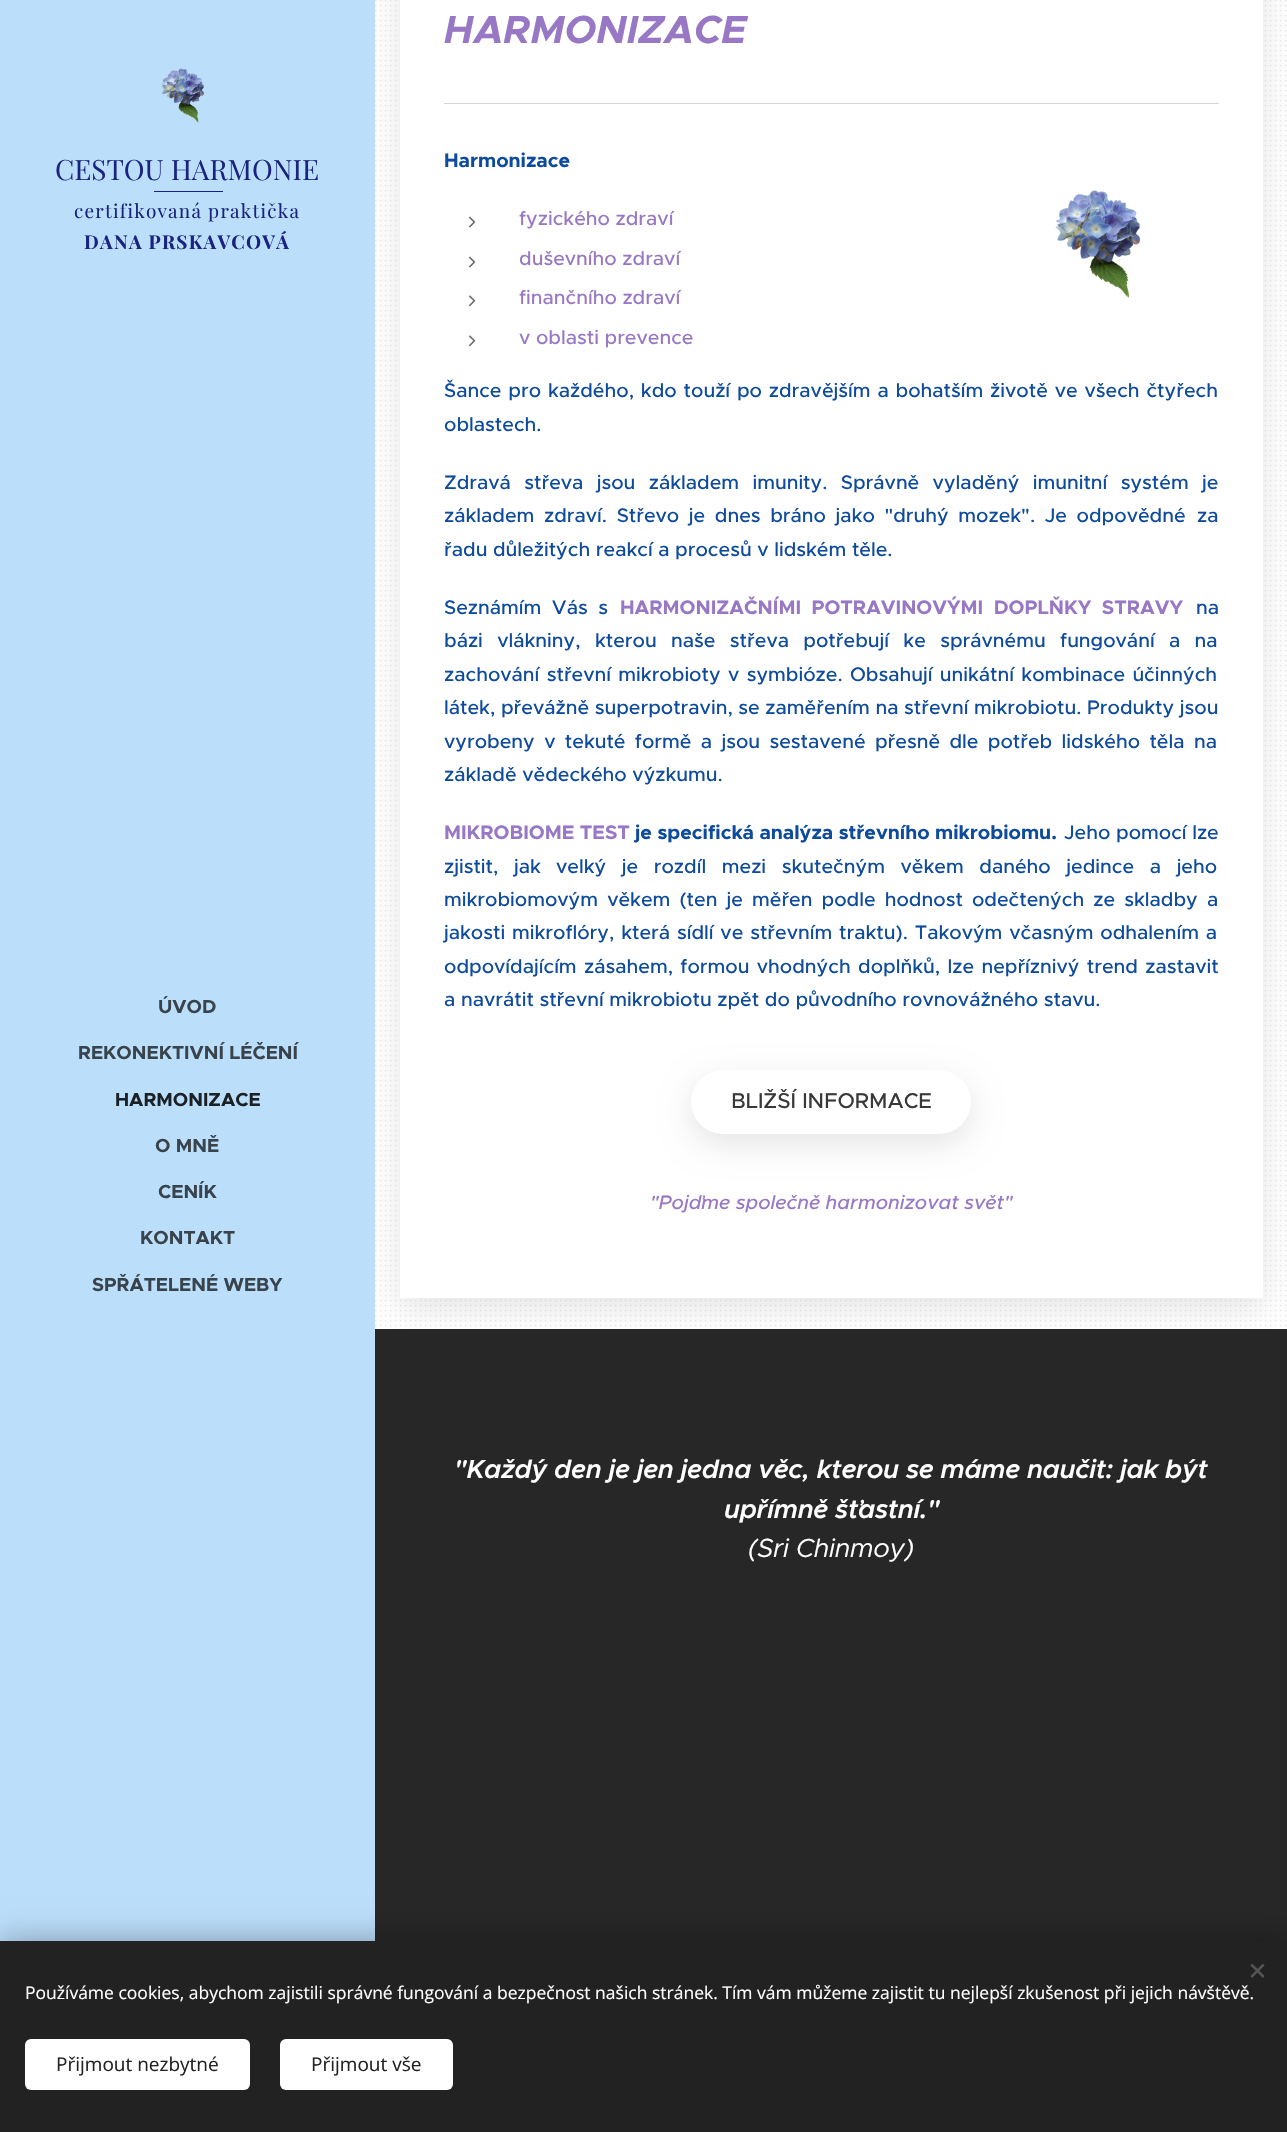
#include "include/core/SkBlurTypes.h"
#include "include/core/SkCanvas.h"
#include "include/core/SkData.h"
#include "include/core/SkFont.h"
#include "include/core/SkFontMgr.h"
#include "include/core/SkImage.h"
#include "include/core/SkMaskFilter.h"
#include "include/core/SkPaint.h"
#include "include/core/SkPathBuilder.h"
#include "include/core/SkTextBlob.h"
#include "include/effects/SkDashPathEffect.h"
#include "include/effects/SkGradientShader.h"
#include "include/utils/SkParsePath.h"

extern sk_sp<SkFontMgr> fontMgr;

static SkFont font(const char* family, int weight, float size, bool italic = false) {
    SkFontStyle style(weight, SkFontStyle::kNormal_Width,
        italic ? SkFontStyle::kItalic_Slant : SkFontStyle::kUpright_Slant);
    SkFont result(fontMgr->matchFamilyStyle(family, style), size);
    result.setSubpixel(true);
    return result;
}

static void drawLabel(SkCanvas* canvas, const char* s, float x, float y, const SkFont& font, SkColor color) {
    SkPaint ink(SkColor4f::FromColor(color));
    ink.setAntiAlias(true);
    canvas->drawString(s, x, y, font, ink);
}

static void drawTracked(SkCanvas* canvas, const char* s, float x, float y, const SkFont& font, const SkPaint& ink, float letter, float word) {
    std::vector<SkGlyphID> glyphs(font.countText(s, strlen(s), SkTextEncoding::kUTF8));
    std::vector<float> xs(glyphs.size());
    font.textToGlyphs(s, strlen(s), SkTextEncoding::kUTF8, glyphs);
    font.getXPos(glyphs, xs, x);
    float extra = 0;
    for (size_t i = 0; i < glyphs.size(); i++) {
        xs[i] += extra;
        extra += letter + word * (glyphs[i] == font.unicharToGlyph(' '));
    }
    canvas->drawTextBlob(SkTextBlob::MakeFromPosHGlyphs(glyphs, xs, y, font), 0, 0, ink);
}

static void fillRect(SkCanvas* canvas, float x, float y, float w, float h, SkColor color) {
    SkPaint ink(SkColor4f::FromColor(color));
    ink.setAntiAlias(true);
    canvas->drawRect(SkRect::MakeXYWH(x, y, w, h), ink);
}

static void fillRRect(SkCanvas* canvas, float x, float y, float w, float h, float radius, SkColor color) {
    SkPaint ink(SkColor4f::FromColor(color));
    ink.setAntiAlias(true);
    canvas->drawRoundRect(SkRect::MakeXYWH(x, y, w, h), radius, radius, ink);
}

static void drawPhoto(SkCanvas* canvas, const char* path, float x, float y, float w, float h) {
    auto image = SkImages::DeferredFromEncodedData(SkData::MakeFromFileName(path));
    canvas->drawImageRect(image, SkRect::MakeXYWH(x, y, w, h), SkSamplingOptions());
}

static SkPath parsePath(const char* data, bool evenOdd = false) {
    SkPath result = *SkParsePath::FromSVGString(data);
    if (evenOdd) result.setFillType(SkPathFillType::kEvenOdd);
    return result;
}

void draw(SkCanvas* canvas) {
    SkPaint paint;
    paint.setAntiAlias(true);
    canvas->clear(0xFFFFFFFF);
    drawPhoto(canvas, "assets/img2.png", 375, 0, 912, 1327);
    paint.setColor(0x1A000000);
    paint.setMaskFilter(SkMaskFilter::MakeBlur(kNormal_SkBlurStyle, 15.5f));
    canvas->drawRect(SkRect::MakeXYWH(400, -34, 863, 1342), paint);
    paint.setMaskFilter(nullptr);
    fillRect(canvas, 0, 0, 375, 1941, 0xFFBBDEFB);
    drawPhoto(canvas, "assets/img1.png", 161, 68, 44, 55);
    SkFont font1 = font("Playfair Display", 400, 28);
    drawLabel(canvas, "CESTOU HARMONIE", 55, 180, font1, 0xFF1A237E);
    fillRect(canvas, 154, 191, 69, 1, 0xFF1A237E);
    SkFont font2 = font("Playfair Display", 400, 19);
    paint.setColor(0xFF1A237E);
    drawTracked(canvas, "certifikovaná praktička", 74, 218, font2, paint, 1.25f, 0);
    SkFont font3 = font("Playfair Display", 700, 19);
    drawTracked(canvas, "DANA PRSKAVCOVÁ", 84, 249, font3, paint, 1.25f, 0);
    SkFont font4 = font("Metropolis", 700, 19);
    drawLabel(canvas, "ÚVOD", 158, 1013, font4, 0xFF38434B);
    drawLabel(canvas, "REKONEKTIVNÍ LÉČENÍ", 78, 1059, font4, 0xFF38434B);
    drawLabel(canvas, "HARMONIZACE", 115, 1106, font4, 0xFF1C2126);
    drawLabel(canvas, "O MNĚ", 155, 1152, font4, 0xFF38434B);
    drawLabel(canvas, "CENÍK", 158, 1198, font4, 0xFF38434B);
    drawLabel(canvas, "KONTAKT", 140, 1244, font4, 0xFF38434B);
    drawLabel(canvas, "SPŘÁTELENÉ WEBY", 92, 1291, font4, 0xFF38434B);
    fillRect(canvas, 400, 0, 863, 1298, 0xFFFFFFFF);
    SkFont font5 = font("Metropolis", 700, 39.25f, true);
    drawLabel(canvas, "HARMONIZACE", 444, 43, font5, 0xFF9878C4);
    fillRect(canvas, 444, 103, 775, 1, 0xFFD4D4D4);
    SkFont font6 = font("Metropolis", 700, 19.6f);
    drawLabel(canvas, "Harmonizace", 444, 167, font6, 0xFF0E4B9C);
    drawPhoto(canvas, "assets/img3.png", 468, 216, 8, 12);
    SkFont font7 = font("Metropolis", 500, 19.6f);
    drawLabel(canvas, "fyzického zdraví", 519, 225, font7, 0xFF9878C4);
    drawPhoto(canvas, "assets/img3.png", 468, 256, 8, 12);
    drawLabel(canvas, "duševního zdraví", 519, 265, font7, 0xFF9878C4);
    drawPhoto(canvas, "assets/img4.png", 468, 295, 8, 12);
    drawLabel(canvas, "finančního zdraví", 519, 304, font7, 0xFF9878C4);
    drawPhoto(canvas, "assets/img4.png", 468, 335, 8, 12);
    drawLabel(canvas, "v oblasti prevence", 519, 344, font7, 0xFF9878C4);
    paint.setColor(0xFF0E4B9C);
    drawTracked(canvas, "Šance pro každého, kdo touží po zdravějším a bohatším životě ve všech čtyřech", 444, 397, font7, paint, 0, 1.25f);
    drawLabel(canvas, "oblastech.", 444, 431, font7, 0xFF0E4B9C);
    drawTracked(canvas, "Zdravá střeva jsou základem imunity. Správně vyladěný imunitní systém je", 444, 489, font7, paint, 0, 7.75f);
    drawTracked(canvas, "základem zdraví. Střevo je dnes bráno jako \"druhý mozek\". Je odpovědné", 444, 522, font7, paint, 0, 4);
    drawLabel(canvas, "za", 1197, 522, font7, 0xFF0E4B9C);
    drawLabel(canvas, "řadu důležitých reakcí a procesů v lidském těle.", 444, 556, font7, 0xFF0E4B9C);
    drawTracked(canvas, "Seznámím Vás s", 444, 614, font7, paint, 0, 5);
    paint.setColor(0xFF9878C4);
    drawTracked(canvas, "HARMONIZAČNÍMI POTRAVINOVÝMI DOPLŇKY STRAVY", 620, 614, font6, paint, 0, 5);
    drawLabel(canvas, "na", 1196, 614, font7, 0xFF0E4B9C);
    paint.setColor(0xFF0E4B9C);
    drawTracked(canvas, "bázi vlákniny, kterou naše střeva potřebují ke správnému fungování a na", 444, 647, font7, paint, 0, 8.75f);
    drawTracked(canvas, "zachování střevní mikrobioty v symbióze. Obsahují unikátní kombinace účinných", 444, 681, font7, paint, 0, 1.75f);
    drawLabel(canvas, "látek, převážně superpotravin, se zaměřením na střevní mikrobiotu. Produkty jsou", 444, 714, font7, 0xFF0E4B9C);
    drawTracked(canvas, "vyrobeny v tekuté formě a jsou sestavené přesně dle potřeb lidského těla na", 444, 748, font7, paint, 0, 3.75f);
    drawLabel(canvas, "základě vědeckého výzkumu.", 444, 781, font7, 0xFF0E4B9C);
    drawLabel(canvas, "MIKROBIOME TEST", 444, 839, font6, 0xFF9878C4);
    drawLabel(canvas, "je specifická analýza střevního mikrobiomu.", 635, 839, font6, 0xFF0E4B9C);
    drawLabel(canvas, "Jeho pomocí lze", 1064, 839, font7, 0xFF0E4B9C);
    drawTracked(canvas, "zjistit, jak", 444, 873, font7, paint, 0, 10);
    drawTracked(canvas, "velký je rozdíl mezi skutečným věkem daného jedince a jeho", 556, 873, font7, paint, 0, 10);
    drawTracked(canvas, "mikrobiomovým věkem (ten je měřen podle hodnost odečtených ze skladby a", 444, 906, font7, paint, 0, 3.5f);
    drawTracked(canvas, "jakosti mikroflóry, která sídlí ve střevním traktu). Takovým včasným odhalením a", 444, 939, font7, paint, 0, 1.25f);
    drawTracked(canvas, "odpovídajícím zásahem, formou vhodných doplňků, lze nepříznivý trend zastavit", 444, 973, font7, paint, 0, 1.75f);
    drawLabel(canvas, "a navrátit střevní mikrobiotu zpět do původního rovnovážného stavu.", 444, 1006, font7, 0xFF0E4B9C);
    drawPhoto(canvas, "assets/img5.png", 1055, 190, 86, 108);
    paint.setColor(0x1A000000);
    paint.setMaskFilter(SkMaskFilter::MakeBlur(kNormal_SkBlurStyle, 15.5f));
    canvas->drawRoundRect(SkRect::MakeXYWH(691, 1080, 280, 64), 32, 32, paint);
    paint.setMaskFilter(nullptr);
    fillRRect(canvas, 691, 1070, 280, 64, 32, 0xFFFFFFFF);
    SkFont font8 = font("Metropolis", 500, 21.5f);
    drawLabel(canvas, "BLIŽŠÍ INFORMACE", 731, 1108, font8, 0xFF393939);
    SkFont font9 = font("Metropolis", 500, 19.6f, true);
    drawLabel(canvas, "\"Pojďme společně harmonizovat svět\"", 650, 1209, font9, 0xFF9878C4);
    fillRect(canvas, 375, 1329, 912, 612, 0xFF272727);
    SkFont font10 = font("Metropolis", 600, 26.25f, true);
    paint.setColor(0xFFFFFFFF);
    drawTracked(canvas, "\"Každý den je jen jedna věc, kterou se máme naučit: jak být", 454, 1478, font10, paint, -0.25f, 0);
    drawTracked(canvas, "upřímně šťastní.\"", 724, 1518, font10, paint, -0.25f, 0);
    SkFont font11 = font("Metropolis", 400, 26.25f, true);
    drawTracked(canvas, "(Sri Chinmoy)", 748, 1557, font11, paint, -0.25f, 0);
    paint.setColor(0x54000000);
    paint.setMaskFilter(SkMaskFilter::MakeBlur(kNormal_SkBlurStyle, 15.5f));
    canvas->drawRect(SkRect::MakeXYWH(0, 1941, 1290, 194), paint);
    paint.setMaskFilter(nullptr);
    fillRect(canvas, 0, 1941, 1287, 191, 0xFF222222);
    paint.setColor(0xFF555555);
    canvas->drawPath(parsePath("M1250.5 1976L1263 1963.5L1264.5 1965.5L1252 1978Z"), paint);
    canvas->drawPath(parsePath("M1252 1963.5L1264.5 1976L1263 1978L1250.5 1965.5Z"), paint);
    SkFont font12 = font("Open Sans", 400, 17.5f);
    drawLabel(canvas, "Používáme cookies, abychom zajistili správné fungování a bezpečnost našich stránek. Tím vám můžeme zajistit tu nejlepší zkušenost při jejich návštěvě.", 25, 1999, font12, 0xFFFFFFFF);
    fillRRect(canvas, 25, 2039, 225, 51, 6, 0xFFFFFFFF);
    SkFont font13 = font("Open Sans", 400, 19);
    drawLabel(canvas, "Přijmout nezbytné", 56, 2071, font13, 0xFF222222);
    fillRRect(canvas, 280, 2039, 173, 51, 6, 0xFFFFFFFF);
    drawLabel(canvas, "Přijmout vše", 311, 2071, font13, 0xFF222222);
}
